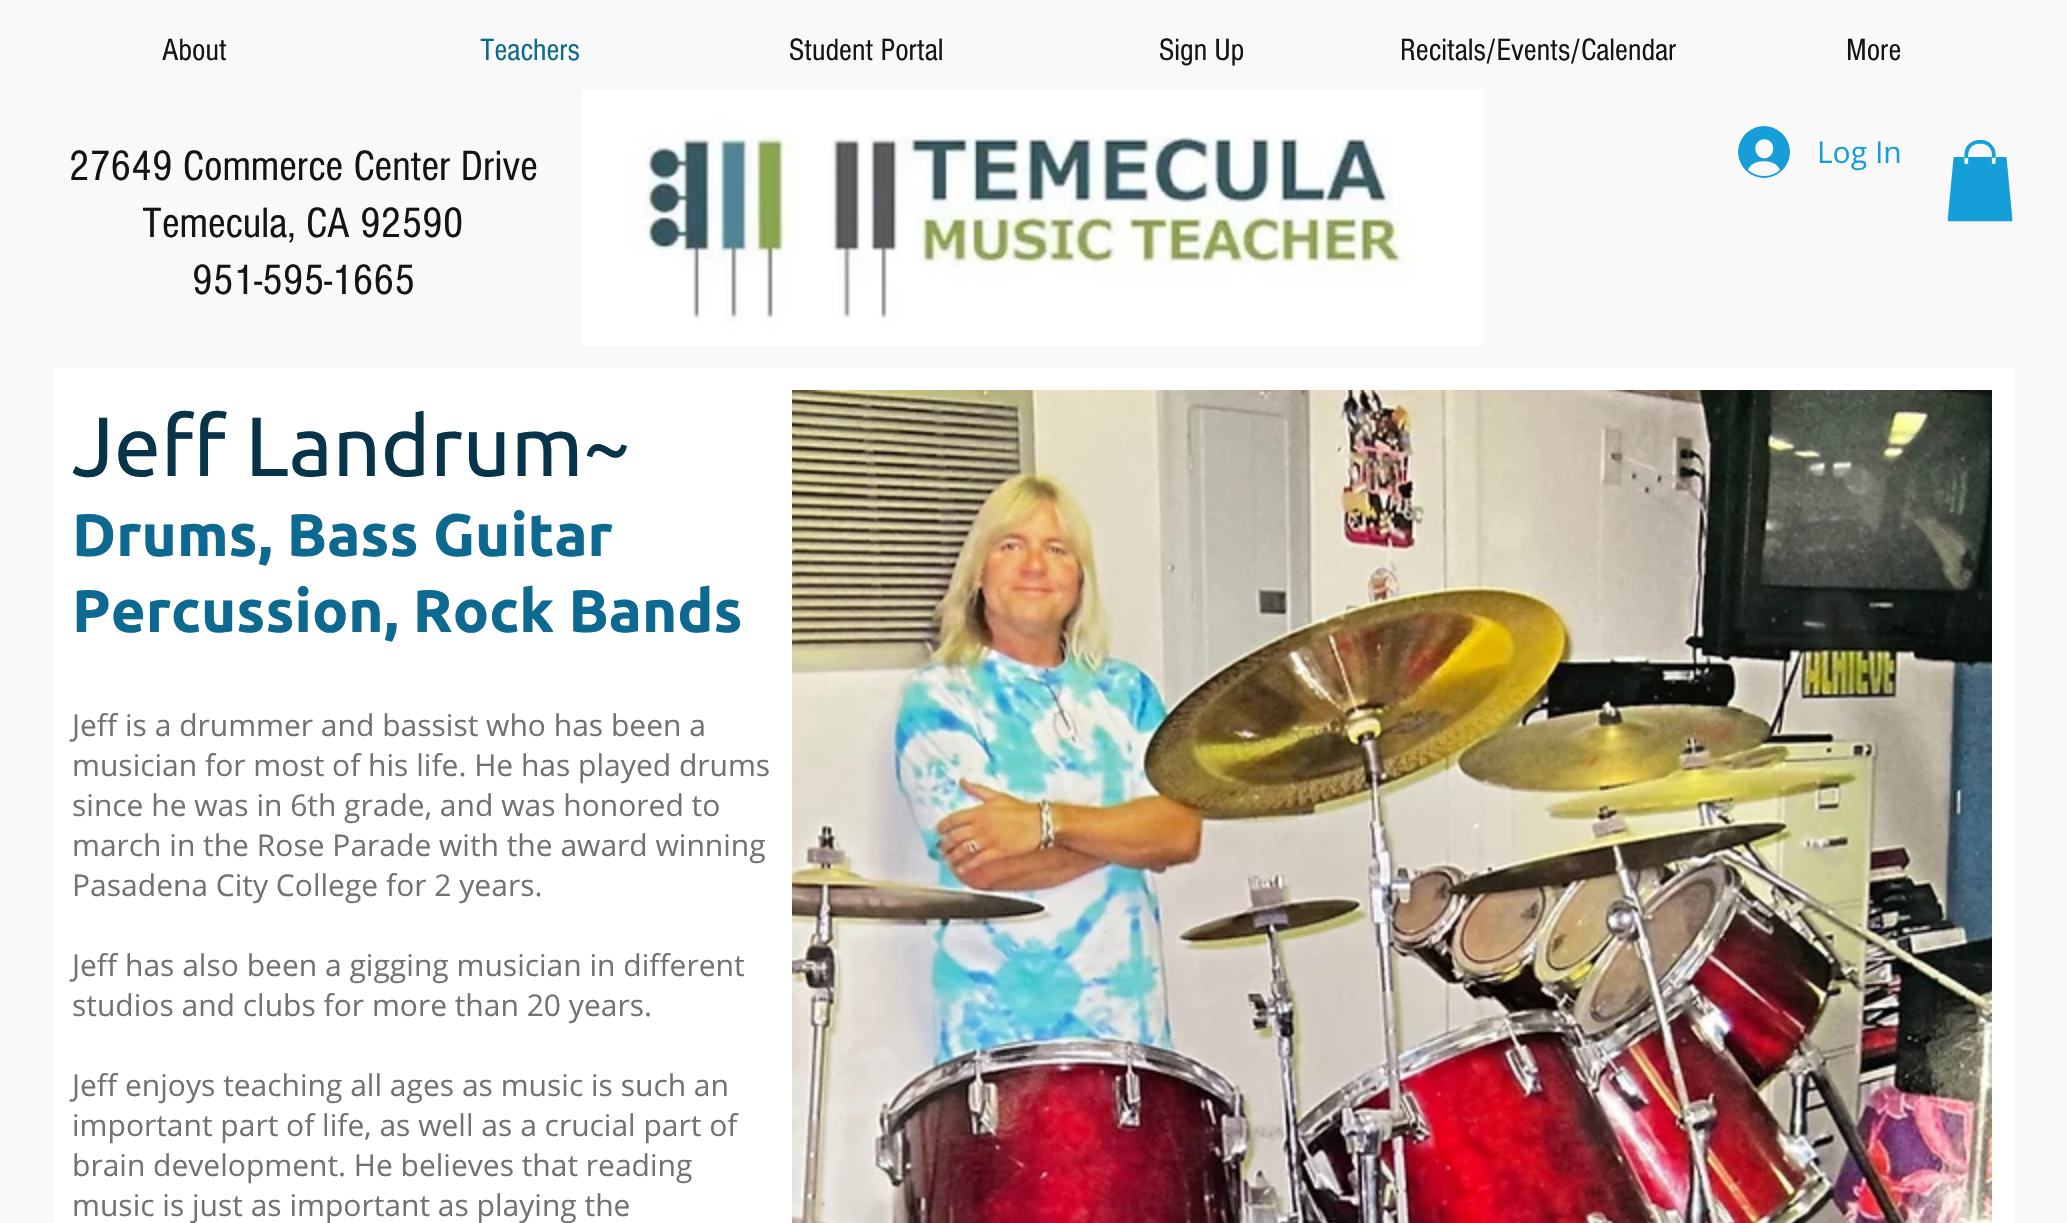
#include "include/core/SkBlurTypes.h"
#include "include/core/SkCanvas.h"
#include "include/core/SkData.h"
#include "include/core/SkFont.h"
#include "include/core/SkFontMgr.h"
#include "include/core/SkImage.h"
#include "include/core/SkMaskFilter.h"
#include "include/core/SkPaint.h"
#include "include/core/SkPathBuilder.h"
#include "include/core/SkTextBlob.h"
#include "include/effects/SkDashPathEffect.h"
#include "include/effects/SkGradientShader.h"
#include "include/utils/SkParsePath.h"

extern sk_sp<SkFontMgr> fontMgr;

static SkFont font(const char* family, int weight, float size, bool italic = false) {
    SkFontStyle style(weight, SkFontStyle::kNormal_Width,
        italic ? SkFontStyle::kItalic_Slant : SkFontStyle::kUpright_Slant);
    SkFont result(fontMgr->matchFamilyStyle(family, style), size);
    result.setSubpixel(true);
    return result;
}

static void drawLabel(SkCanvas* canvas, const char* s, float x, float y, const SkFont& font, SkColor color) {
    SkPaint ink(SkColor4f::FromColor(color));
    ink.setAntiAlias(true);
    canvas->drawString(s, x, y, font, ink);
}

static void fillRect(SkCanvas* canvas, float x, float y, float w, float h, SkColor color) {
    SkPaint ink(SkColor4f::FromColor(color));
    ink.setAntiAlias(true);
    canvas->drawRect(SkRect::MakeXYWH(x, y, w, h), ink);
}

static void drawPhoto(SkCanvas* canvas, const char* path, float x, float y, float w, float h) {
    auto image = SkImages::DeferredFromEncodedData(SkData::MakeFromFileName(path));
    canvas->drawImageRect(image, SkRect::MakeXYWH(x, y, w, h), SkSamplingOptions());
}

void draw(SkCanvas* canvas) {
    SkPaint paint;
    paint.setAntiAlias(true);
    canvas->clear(0xFFF9F9F9);
    SkFont font1 = font("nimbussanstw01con", 400, 32);
    drawLabel(canvas, "About", 162, 60, font1, 0xFF141414);
    drawLabel(canvas, "Teachers", 480, 60, font1, 0xFF0E6990);
    drawLabel(canvas, "Student Portal", 789, 60, font1, 0xFF141414);
    drawLabel(canvas, "Sign Up", 1159, 60, font1, 0xFF141414);
    drawLabel(canvas, "Recitals/Events/Calendar", 1400, 60, font1, 0xFF141414);
    drawLabel(canvas, "More", 1846, 60, font1, 0xFF141414);
    SkFont font2 = font("nimbussanstw01con", 400, 44);
    drawLabel(canvas, "27649 Commerce Center Drive", 69, 180, font2, 0xFF141414);
    drawLabel(canvas, "Temecula, CA 92590", 142, 237, font2, 0xFF141414);
    drawLabel(canvas, "951-595-1665", 192, 294, font2, 0xFF141414);
    drawPhoto(canvas, "assets/img1.png", 582, 90, 902, 256);
    drawPhoto(canvas, "assets/img2.png", 1738, 126, 52, 52);
    SkFont font3 = font("Open Sans", 400, 30);
    drawLabel(canvas, "Log In", 1817, 163, font3, 0xFF159ED8);
    drawPhoto(canvas, "assets/img3.png", 1947, 140, 66, 82);
    fillRect(canvas, 54, 368, 1960, 855, 0xFFFFFFFF);
    SkFont font4 = font("Ubuntu", 400, 84);
    drawLabel(canvas, "Jeff Landrum~", 72, 476, font4, 0xFF073448);
    SkFont font5 = font("Ubuntu", 700, 60);
    drawLabel(canvas, "Drums, Bass Guitar", 72, 556, font5, 0xFF0E6990);
    drawLabel(canvas, "Percussion, Rock Bands", 72, 632, font5, 0xFF0E6990);
    drawPhoto(canvas, "assets/img4.png", 792, 390, 1200, 833);
    drawLabel(canvas, "Jeff is a drummer and bassist who has been a", 72, 736, font3, 0xFF727272);
    drawLabel(canvas, "musician for most of his life. He has played drums", 72, 776, font3, 0xFF727272);
    drawLabel(canvas, "since he was in 6th grade, and was honored to", 72, 816, font3, 0xFF727272);
    drawLabel(canvas, "march in the Rose Parade with the award winning", 72, 856, font3, 0xFF727272);
    drawLabel(canvas, "Pasadena City College for 2 years.", 72, 896, font3, 0xFF727272);
    drawLabel(canvas, "Jeff has also been a gigging musician in different", 72, 976, font3, 0xFF727272);
    drawLabel(canvas, "studios and clubs for more than 20 years.", 72, 1016, font3, 0xFF727272);
    drawLabel(canvas, "Jeff enjoys teaching all ages as music is such an", 72, 1096, font3, 0xFF727272);
    drawLabel(canvas, "important part of life, as well as a crucial part of", 72, 1136, font3, 0xFF727272);
    drawLabel(canvas, "brain development. He believes that reading", 72, 1176, font3, 0xFF727272);
    drawLabel(canvas, "music is just as important as playing the", 72, 1216, font3, 0xFF727272);
}
